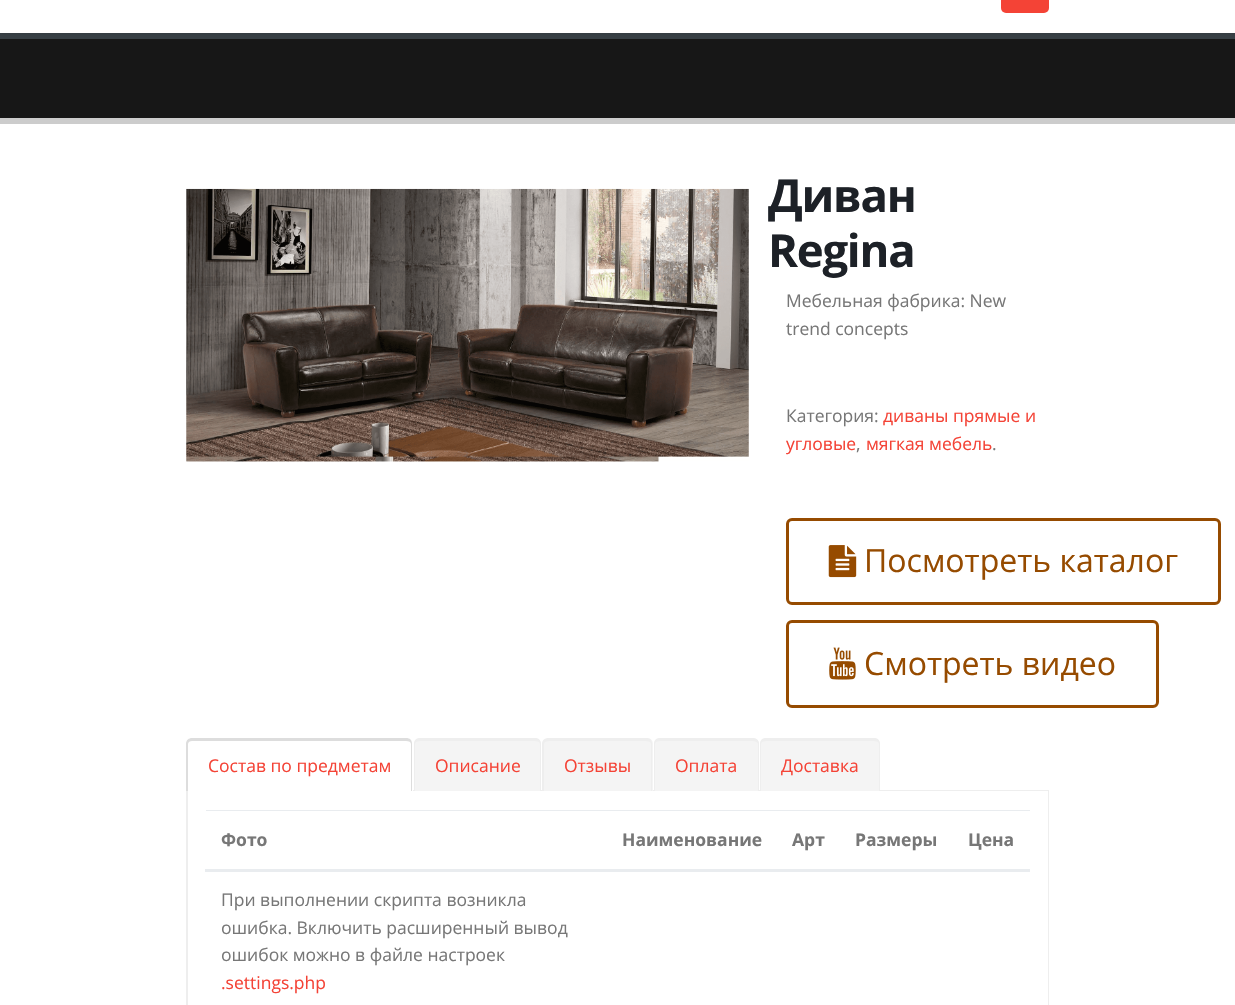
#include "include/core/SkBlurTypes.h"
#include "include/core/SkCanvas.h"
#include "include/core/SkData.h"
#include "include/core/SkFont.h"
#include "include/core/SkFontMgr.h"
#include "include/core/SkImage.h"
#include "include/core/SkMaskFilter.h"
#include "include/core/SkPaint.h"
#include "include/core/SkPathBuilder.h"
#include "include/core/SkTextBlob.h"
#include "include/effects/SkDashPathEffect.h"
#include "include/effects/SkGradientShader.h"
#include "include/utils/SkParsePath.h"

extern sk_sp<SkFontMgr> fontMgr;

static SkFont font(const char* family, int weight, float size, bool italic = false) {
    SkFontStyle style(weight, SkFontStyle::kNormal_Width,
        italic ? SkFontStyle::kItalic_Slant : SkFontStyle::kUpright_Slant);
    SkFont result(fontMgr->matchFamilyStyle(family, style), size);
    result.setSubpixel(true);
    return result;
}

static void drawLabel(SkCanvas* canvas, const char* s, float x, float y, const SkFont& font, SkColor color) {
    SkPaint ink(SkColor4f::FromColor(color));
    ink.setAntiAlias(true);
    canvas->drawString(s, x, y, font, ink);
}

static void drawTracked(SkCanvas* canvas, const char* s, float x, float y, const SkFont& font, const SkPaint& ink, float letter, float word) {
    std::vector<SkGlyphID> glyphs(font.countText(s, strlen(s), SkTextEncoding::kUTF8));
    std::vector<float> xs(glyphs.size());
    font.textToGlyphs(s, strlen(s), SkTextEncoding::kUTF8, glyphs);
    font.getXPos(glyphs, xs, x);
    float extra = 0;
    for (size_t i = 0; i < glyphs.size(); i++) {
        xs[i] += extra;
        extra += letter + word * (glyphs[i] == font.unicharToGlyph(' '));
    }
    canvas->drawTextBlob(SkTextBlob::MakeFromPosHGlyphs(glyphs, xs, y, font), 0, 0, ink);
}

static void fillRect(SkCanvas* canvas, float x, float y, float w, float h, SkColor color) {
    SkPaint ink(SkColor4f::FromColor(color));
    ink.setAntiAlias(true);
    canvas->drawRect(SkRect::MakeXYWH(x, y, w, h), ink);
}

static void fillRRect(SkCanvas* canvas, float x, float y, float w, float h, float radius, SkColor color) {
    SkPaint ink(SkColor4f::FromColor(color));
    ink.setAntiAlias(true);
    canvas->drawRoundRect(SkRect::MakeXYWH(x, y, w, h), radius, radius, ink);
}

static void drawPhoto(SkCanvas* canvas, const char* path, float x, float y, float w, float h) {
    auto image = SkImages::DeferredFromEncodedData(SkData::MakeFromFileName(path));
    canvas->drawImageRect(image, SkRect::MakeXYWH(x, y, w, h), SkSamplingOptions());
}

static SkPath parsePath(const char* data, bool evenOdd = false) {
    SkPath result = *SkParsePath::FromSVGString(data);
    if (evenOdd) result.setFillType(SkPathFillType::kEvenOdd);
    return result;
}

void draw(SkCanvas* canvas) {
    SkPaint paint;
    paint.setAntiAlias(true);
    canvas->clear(0xFFFFFFFF);
    fillRect(canvas, 0, 39, 1235, 79, 0xFF171717);
    fillRect(canvas, 0, 33, 1235, 6, 0xFF384045);
    paint.setColor(0x1A000000);
    paint.setMaskFilter(SkMaskFilter::MakeBlur(kNormal_SkBlurStyle, 2));
    canvas->drawRect(SkRect::MakeXYWH(0, -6, 1235, 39), paint);
    paint.setMaskFilter(nullptr);
    fillRect(canvas, 0, 0, 1235, 33, 0xFFFFFFFF);
    fillRRect(canvas, 1001, -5, 48, 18, 5, 0xFFF44336);
    fillRect(canvas, 0, 118, 1235, 6, 0xFFCCCCCC);
    drawPhoto(canvas, "assets/img1.png", 186, 188, 563, 274);
    SkFont font1 = font("Open Sans", 700, 45.5f);
    paint.setColor(0xFF1D2127);
    drawTracked(canvas, "Диван", 768, 212, font1, paint, -1.25f, 0);
    drawTracked(canvas, "Regina", 768, 267, font1, paint, -1.25f, 0);
    SkFont font2 = font("Open Sans", 400, 17.5f);
    drawLabel(canvas, "Мебельная фабрика: New", 786, 307, font2, 0xFF777777);
    drawLabel(canvas, "trend concepts", 786, 335, font2, 0xFF777777);
    drawLabel(canvas, "Категория:", 786, 422, font2, 0xFF777777);
    drawLabel(canvas, "диваны прямые и", 883, 422, font2, 0xFFF44336);
    drawLabel(canvas, "угловые", 786, 450, font2, 0xFFF44336);
    drawLabel(canvas, ",", 856, 450, font2, 0xFF777777);
    drawLabel(canvas, "мягкая мебель", 866, 450, font2, 0xFFF44336);
    drawLabel(canvas, ".", 992, 450, font2, 0xFF777777);
    paint.setStroke(true);
    paint.setStrokeWidth(3);
    paint.setColor(0xFF964B00);
    canvas->drawRoundRect(SkRect::MakeXYWH(787.5f, 519.5f, 432, 84), 4.5f, 4.5f, paint);
    drawPhoto(canvas, "assets/img2.png", 828, 545, 29, 33);
    SkFont font3 = font("Open Sans", 400, 32);
    drawLabel(canvas, "Посмотреть каталог", 864, 572, font3, 0xFF964B00);
    canvas->drawRoundRect(SkRect::MakeXYWH(787.5f, 621.5f, 370, 85), 4.5f, 4.5f, paint);
    drawPhoto(canvas, "assets/img3.png", 829, 647, 27, 33);
    drawLabel(canvas, "Смотреть видео", 864, 675, font3, 0xFF964B00);
    fillRect(canvas, 413, 790, 636, 1, 0xFFEEEEEE);
    paint.setStroke(false);
    paint.setColor(0xFFDDDDDD);
    canvas->drawPath(parsePath("M192 738H406C410 738 412 740 412 744V791H186V744C186 740 189 738 192 738ZM192 741H406C409 741 411 742 411 744V791H188V744C188 742 190 741 192 741Z", true), paint);
    drawLabel(canvas, "Состав по предметам", 208, 772, font2, 0xFFF44336);
    paint.setColor(0xFFF4F4F4);
    canvas->drawPath(parsePath("M420 738H535C538.5 738 541 740.5 541 744V791H414V744C414 740.5 416.5 738 420 738Z"), paint);
    paint.setColor(0xFFEEEEEE);
    canvas->drawPath(parsePath("M420 738H535C538 738 541 740 541 744V791H414V744C414 740 417 738 420 738ZM420 741H535C538 741 540 742 540 744V791H415V744C415 742 417 741 420 741Z", true), paint);
    drawLabel(canvas, "Описание", 435, 772, font2, 0xFFF44336);
    paint.setColor(0xFFF4F4F4);
    canvas->drawPath(parsePath("M549 738H647C650.5 738 653 740.5 653 744V791H543V744C543 740.5 545.5 738 549 738Z"), paint);
    paint.setColor(0xFFEEEEEE);
    canvas->drawPath(parsePath("M549 738H646C650 738 652 740 652 744V791H542V744C542 740 545 738 549 738ZM549 741H646C649 741 651 742 651 744V791H544V744C544 742 546 741 549 741Z", true), paint);
    drawLabel(canvas, "Отзывы", 564, 772, font2, 0xFFF44336);
    paint.setColor(0xFFF4F4F4);
    canvas->drawPath(parsePath("M660 738H753C756.5 738 759 740.5 759 744V791H654V744C654 740.5 656.5 738 660 738Z"), paint);
    paint.setColor(0xFFEEEEEE);
    canvas->drawPath(parsePath("M660 738H752C756 738 759 740 759 744V791H654V744C654 740 657 738 660 738ZM660 741H752C755 741 758 742 758 744V791H655V744C655 742 657 741 660 741Z", true), paint);
    drawLabel(canvas, "Оплата", 675, 772, font2, 0xFFF44336);
    paint.setColor(0xFFF4F4F4);
    canvas->drawPath(parsePath("M766 738H874C877.5 738 880 740.5 880 744V791H760V744C760 740.5 762.5 738 766 738Z"), paint);
    paint.setColor(0xFFEEEEEE);
    canvas->drawPath(parsePath("M766 738H874C877 738 880 740 880 744V791H760V744C760 740 763 738 766 738ZM766 741H874C877 741 879 742 879 744V791H761V744C761 742 763 741 766 741Z", true), paint);
    drawLabel(canvas, "Доставка", 781, 772, font2, 0xFFF44336);
    canvas->drawPath(parsePath("M186 791H1049V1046C1049 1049 1047 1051 1044 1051H191C188 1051 186 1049 186 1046ZM188 791H1048V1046C1048 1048 1046 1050 1044 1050H191C189 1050 188 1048 188 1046Z", true), paint);
    SkFont font4 = font("Open Sans", 700, 17.5f);
    drawLabel(canvas, "Фото", 221, 846, font4, 0xFF777777);
    drawLabel(canvas, "Наименование", 622, 846, font4, 0xFF777777);
    drawLabel(canvas, "Арт", 792, 846, font4, 0xFF777777);
    drawLabel(canvas, "Размеры", 855, 846, font4, 0xFF777777);
    fillRect(canvas, 206, 810, 824, 1, 0xFFE9ECEF);
    fillRect(canvas, 205, 869, 825, 3, 0xFFE9ECEF);
    drawLabel(canvas, "Цена", 968, 846, font4, 0xFF777777);
    drawLabel(canvas, "При выполнении скрипта возникла", 221, 906, font2, 0xFF777777);
    drawLabel(canvas, "ошибка. Включить расширенный вывод", 221, 934, font2, 0xFF777777);
    drawLabel(canvas, "ошибок можно в файле настроек", 221, 961, font2, 0xFF777777);
    drawLabel(canvas, ".settings.php", 221, 989, font2, 0xFFF44336);
}
